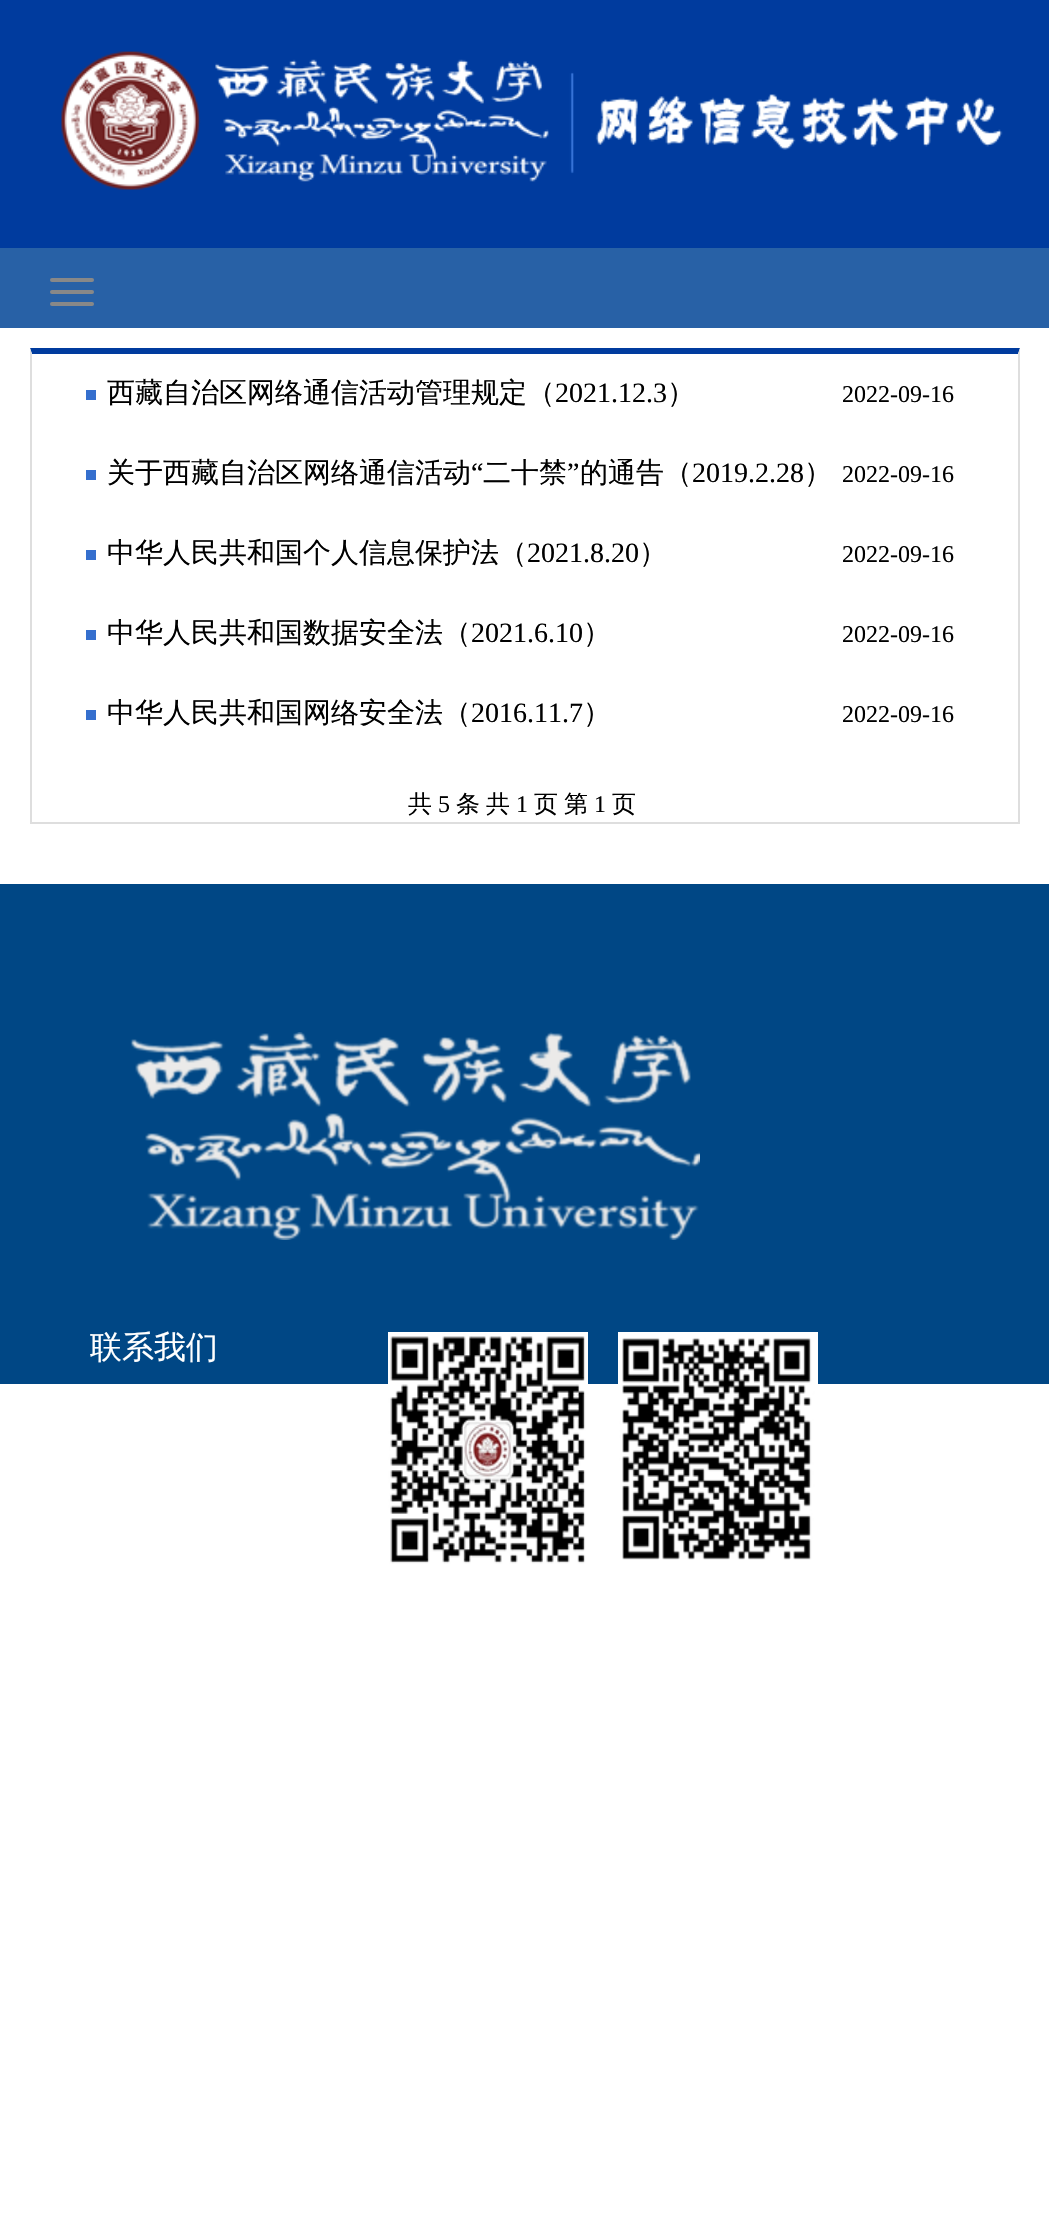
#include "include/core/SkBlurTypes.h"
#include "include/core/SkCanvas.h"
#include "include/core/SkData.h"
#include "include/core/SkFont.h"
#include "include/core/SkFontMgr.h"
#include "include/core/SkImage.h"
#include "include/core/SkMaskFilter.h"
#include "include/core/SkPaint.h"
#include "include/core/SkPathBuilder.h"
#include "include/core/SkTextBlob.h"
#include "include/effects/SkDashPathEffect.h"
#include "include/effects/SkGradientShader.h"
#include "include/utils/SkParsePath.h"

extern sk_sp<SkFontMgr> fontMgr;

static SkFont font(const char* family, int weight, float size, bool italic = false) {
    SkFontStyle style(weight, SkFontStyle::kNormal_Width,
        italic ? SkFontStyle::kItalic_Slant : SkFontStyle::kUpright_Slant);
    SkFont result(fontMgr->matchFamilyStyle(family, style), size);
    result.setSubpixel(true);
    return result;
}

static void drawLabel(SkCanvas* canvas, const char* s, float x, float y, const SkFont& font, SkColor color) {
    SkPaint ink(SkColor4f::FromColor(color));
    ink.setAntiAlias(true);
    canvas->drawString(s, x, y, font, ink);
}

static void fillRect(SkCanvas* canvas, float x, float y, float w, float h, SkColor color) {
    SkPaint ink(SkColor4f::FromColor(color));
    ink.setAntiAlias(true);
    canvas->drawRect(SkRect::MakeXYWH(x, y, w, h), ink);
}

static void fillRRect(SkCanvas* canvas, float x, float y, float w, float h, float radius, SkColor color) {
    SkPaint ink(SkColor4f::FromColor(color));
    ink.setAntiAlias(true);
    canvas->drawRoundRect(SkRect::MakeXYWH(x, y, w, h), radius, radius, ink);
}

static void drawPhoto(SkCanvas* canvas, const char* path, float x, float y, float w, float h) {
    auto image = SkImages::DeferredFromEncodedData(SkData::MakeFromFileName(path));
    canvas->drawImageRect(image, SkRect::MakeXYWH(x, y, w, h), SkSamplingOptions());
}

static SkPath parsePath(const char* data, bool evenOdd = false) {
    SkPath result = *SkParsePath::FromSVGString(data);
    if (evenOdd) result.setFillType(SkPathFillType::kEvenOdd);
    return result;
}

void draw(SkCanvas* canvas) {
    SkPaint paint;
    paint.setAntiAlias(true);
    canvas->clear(0xFFFFFFFF);
    fillRect(canvas, 0, 0, 1049, 248, 0xFF003B9E);
    drawPhoto(canvas, "assets/img1.png", 61, 51, 942, 139);
    fillRect(canvas, 0, 248, 1049, 80, 0xFF2861A6);
    fillRRect(canvas, 50, 278, 44, 4, 2, 0xFF888888);
    fillRRect(canvas, 50, 290, 44, 4, 2, 0xFF888888);
    fillRRect(canvas, 50, 302, 44, 4, 2, 0xFF888888);
    paint.setColor(0xFF003B9E);
    canvas->drawPath(parsePath("M30 348H1020L1018 354H32Z"), paint);
    paint.setColor(0xFFDEDEDE);
    canvas->drawPath(parsePath("M1020 348V824L1018 822V354Z"), paint);
    fillRect(canvas, 30, 822, 990, 2, 0xFFDEDEDE);
    canvas->drawPath(parsePath("M30 824V348L32 354V822Z"), paint);
    fillRect(canvas, 86, 390, 10, 10, 0xFF356FCE);
    SkFont font1 = font("WenQuanYi Zen Hei", 500, 28);
    drawLabel(canvas, "西藏自治区网络通信活动管理规定（", 107, 402, font1, 0xFF000000);
    SkFont font2 = font("Liberation Serif", 400, 28);
    drawLabel(canvas, "2021.12.3", 555, 402, font2, 0xFF000000);
    drawLabel(canvas, "）", 667, 402, font1, 0xFF000000);
    SkFont font3 = font("Liberation Serif", 400, 24);
    drawLabel(canvas, "2022-09-16", 842, 402, font3, 0xFF000000);
    fillRect(canvas, 86, 470, 10, 10, 0xFF356FCE);
    drawLabel(canvas, "关于西藏自治区网络通信活动", 107, 482, font1, 0xFF000000);
    drawLabel(canvas, "“", 471, 482, font2, 0xFF000000);
    drawLabel(canvas, "二十禁", 483, 482, font1, 0xFF000000);
    drawLabel(canvas, "”", 567, 482, font2, 0xFF000000);
    drawLabel(canvas, "的通告（", 580, 482, font1, 0xFF000000);
    drawLabel(canvas, "2019.2.28", 692, 482, font2, 0xFF000000);
    drawLabel(canvas, "）", 804, 482, font1, 0xFF000000);
    drawLabel(canvas, "2022-09-16", 842, 482, font3, 0xFF000000);
    fillRect(canvas, 86, 550, 10, 10, 0xFF356FCE);
    drawLabel(canvas, "中华人民共和国个人信息保护法（", 107, 562, font1, 0xFF000000);
    drawLabel(canvas, "2021.8.20", 527, 562, font2, 0xFF000000);
    drawLabel(canvas, "）", 639, 562, font1, 0xFF000000);
    drawLabel(canvas, "2022-09-16", 842, 562, font3, 0xFF000000);
    fillRect(canvas, 86, 630, 10, 10, 0xFF356FCE);
    drawLabel(canvas, "中华人民共和国数据安全法（", 107, 642, font1, 0xFF000000);
    drawLabel(canvas, "2021.6.10", 471, 642, font2, 0xFF000000);
    drawLabel(canvas, "）", 583, 642, font1, 0xFF000000);
    drawLabel(canvas, "2022-09-16", 842, 642, font3, 0xFF000000);
    fillRect(canvas, 86, 710, 10, 10, 0xFF356FCE);
    drawLabel(canvas, "中华人民共和国网络安全法（", 107, 722, font1, 0xFF000000);
    drawLabel(canvas, "2016.11.7", 471, 722, font2, 0xFF000000);
    drawLabel(canvas, "）", 583, 722, font1, 0xFF000000);
    drawLabel(canvas, "2022-09-16", 842, 722, font3, 0xFF000000);
    SkFont font4 = font("WenQuanYi Zen Hei", 500, 24);
    drawLabel(canvas, "共", 408, 812, font4, 0xFF000000);
    drawLabel(canvas, "5", 438, 812, font3, 0xFF000000);
    drawLabel(canvas, "条", 456, 812, font4, 0xFF000000);
    drawLabel(canvas, "共", 486, 812, font4, 0xFF000000);
    drawLabel(canvas, "1", 516, 812, font3, 0xFF000000);
    drawLabel(canvas, "页", 534, 812, font4, 0xFF000000);
    drawLabel(canvas, "第", 564, 812, font4, 0xFF000000);
    drawLabel(canvas, "1", 594, 812, font3, 0xFF000000);
    drawLabel(canvas, "页", 612, 812, font4, 0xFF000000);
    fillRect(canvas, 0, 884, 1049, 500, 0xFF004785);
    drawPhoto(canvas, "assets/img2.png", 130, 1032, 570, 208);
    SkFont font5 = font("WenQuanYi Zen Hei", 500, 32);
    drawLabel(canvas, "联系我们", 90, 1358, font5, 0xFFFFFFFF);
    drawPhoto(canvas, "assets/img3.png", 388, 1332, 200, 232);
    drawPhoto(canvas, "assets/img4.png", 618, 1332, 200, 228);
}
